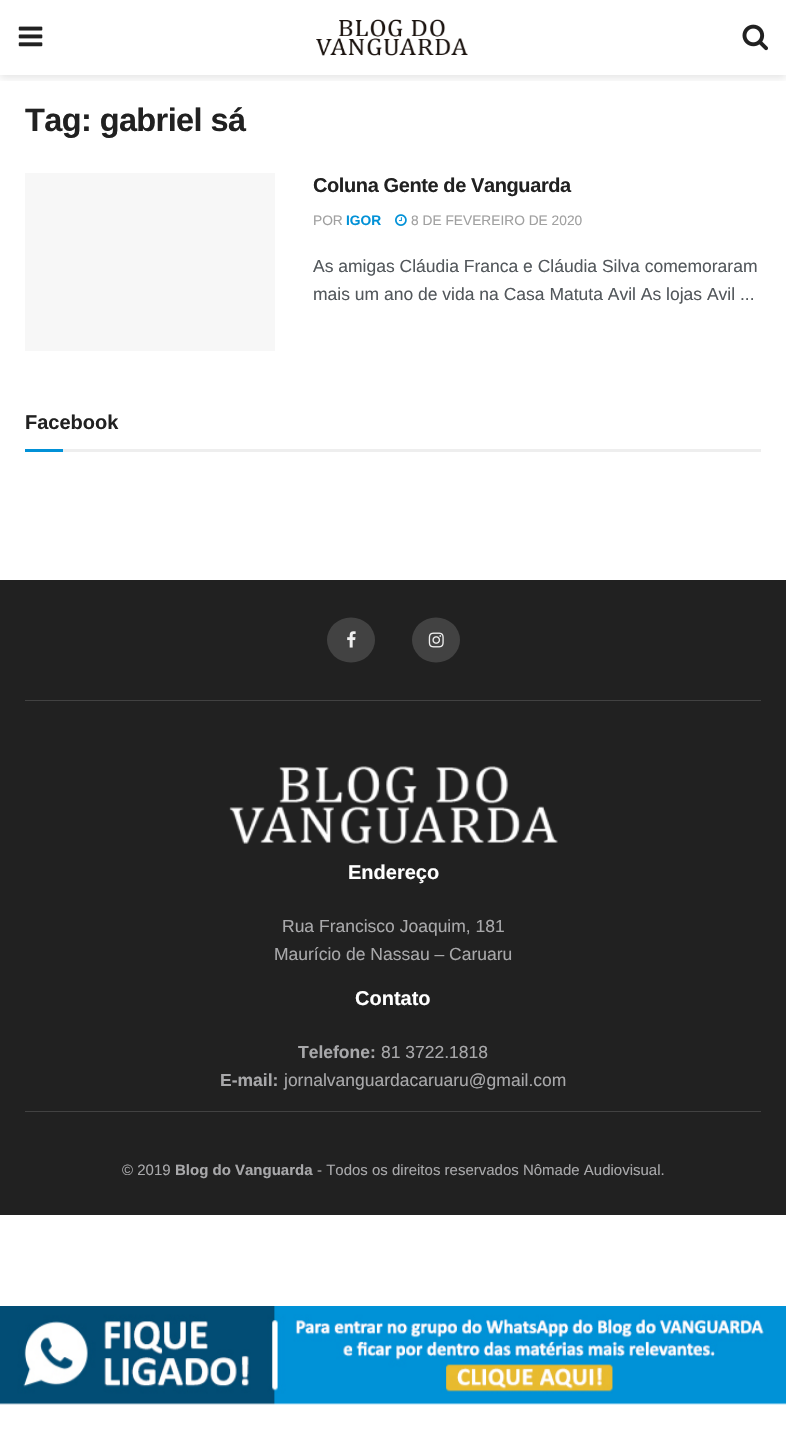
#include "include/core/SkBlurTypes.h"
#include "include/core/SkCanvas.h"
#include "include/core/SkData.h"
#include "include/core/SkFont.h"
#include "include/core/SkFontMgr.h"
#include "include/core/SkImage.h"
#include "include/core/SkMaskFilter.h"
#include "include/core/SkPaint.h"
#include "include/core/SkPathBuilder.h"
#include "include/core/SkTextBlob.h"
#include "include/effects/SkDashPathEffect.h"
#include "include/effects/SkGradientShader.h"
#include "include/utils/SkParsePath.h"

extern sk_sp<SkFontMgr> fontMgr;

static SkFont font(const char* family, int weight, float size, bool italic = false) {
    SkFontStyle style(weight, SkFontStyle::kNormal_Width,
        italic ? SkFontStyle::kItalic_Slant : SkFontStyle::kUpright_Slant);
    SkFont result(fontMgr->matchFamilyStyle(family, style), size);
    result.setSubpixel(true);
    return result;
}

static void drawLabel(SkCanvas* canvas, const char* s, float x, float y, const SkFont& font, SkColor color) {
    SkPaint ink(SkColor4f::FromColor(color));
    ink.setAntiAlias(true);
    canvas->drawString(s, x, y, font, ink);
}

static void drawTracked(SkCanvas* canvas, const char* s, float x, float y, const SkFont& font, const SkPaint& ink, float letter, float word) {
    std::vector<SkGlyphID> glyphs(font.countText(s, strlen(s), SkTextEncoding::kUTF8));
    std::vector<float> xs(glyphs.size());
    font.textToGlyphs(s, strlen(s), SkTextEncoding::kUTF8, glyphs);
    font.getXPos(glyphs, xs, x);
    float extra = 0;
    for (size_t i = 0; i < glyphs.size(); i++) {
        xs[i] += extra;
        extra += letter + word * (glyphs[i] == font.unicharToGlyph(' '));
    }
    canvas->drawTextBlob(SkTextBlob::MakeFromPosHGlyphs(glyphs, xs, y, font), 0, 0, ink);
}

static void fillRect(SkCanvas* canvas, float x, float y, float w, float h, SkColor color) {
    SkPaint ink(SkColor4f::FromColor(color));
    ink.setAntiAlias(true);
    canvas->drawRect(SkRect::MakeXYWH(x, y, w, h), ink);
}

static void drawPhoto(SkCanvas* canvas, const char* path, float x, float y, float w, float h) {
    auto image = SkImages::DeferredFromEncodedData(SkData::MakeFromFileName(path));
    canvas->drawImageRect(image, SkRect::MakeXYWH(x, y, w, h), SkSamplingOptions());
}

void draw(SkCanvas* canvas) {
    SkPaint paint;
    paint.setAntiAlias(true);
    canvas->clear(0xFFFFFFFF);
    canvas->save();
    canvas->clipRect(SkRect::MakeXYWH(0, 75, 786, 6));
    paint.setColor(0x1A000000);
    paint.setMaskFilter(SkMaskFilter::MakeBlur(kNormal_SkBlurStyle, 4));
    canvas->drawRect(SkRect::MakeXYWH(0, 3, 786, 75), paint);
    paint.setMaskFilter(nullptr);
    canvas->restore();
    drawPhoto(canvas, "assets/img1.png", 18, 26, 25, 21);
    drawPhoto(canvas, "assets/img2.png", 316, 19, 152, 37);
    drawPhoto(canvas, "assets/img3.png", 742, 24, 26, 27);
    SkFont font1 = font("Liberation Sans", 700, 32.5f);
    paint.setColor(0xFF212121);
    drawTracked(canvas, "Tag: gabriel sá", 25, 131, font1, paint, -0.6f, 0);
    fillRect(canvas, 25, 173, 250, 178, 0xFFF7F7F7);
    SkFont font2 = font("Liberation Sans", 700, 20);
    drawTracked(canvas, "Coluna Gente de Vanguarda", 313, 192, font2, paint, -0.4f, 0);
    SkFont font3 = font("Liberation Sans", 400, 13.75f);
    drawLabel(canvas, "POR", 313, 225, font3, 0xFFA0A0A0);
    SkFont font4 = font("Liberation Sans", 700, 13.75f);
    drawLabel(canvas, "IGOR", 346, 225, font4, 0xFF0191D7);
    drawPhoto(canvas, "assets/img4.png", 395, 214, 12, 12);
    drawLabel(canvas, "8 DE FEVEREIRO DE 2020", 411, 225, font3, 0xFFA0A0A0);
    SkFont font5 = font("Liberation Sans", 400, 17.5f);
    drawLabel(canvas, "As amigas Cláudia Franca e Cláudia Silva comemoraram", 313, 272, font5, 0xFF53585C);
    drawLabel(canvas, "mais um ano de vida na Casa Matuta Avil As lojas Avil ...", 313, 300, font5, 0xFF53585C);
    fillRect(canvas, 63, 449, 698, 3, 0xFFEEEEEE);
    drawLabel(canvas, "Facebook", 25, 429, font2, 0xFF212121);
    fillRect(canvas, 25, 449, 38, 3, 0xFF0191D7);
    fillRect(canvas, 0, 580, 786, 635, 0xFF212121);
    fillRect(canvas, 25, 700, 736, 1, 0xFF424242);
    paint.setColor(0xFF424242);
    canvas->drawOval(SkRect::MakeXYWH(327, 617.5f, 48, 45), paint);
    drawPhoto(canvas, "assets/img5.png", 347, 631, 9, 17);
    canvas->drawOval(SkRect::MakeXYWH(412, 617.5f, 48, 45), paint);
    drawPhoto(canvas, "assets/img6.png", 428, 632, 16, 16);
    drawPhoto(canvas, "assets/img7.png", 229, 766, 329, 78);
    drawLabel(canvas, "Endereço", 348, 879, font2, 0xFFFFFFFF);
    drawLabel(canvas, "Rua Francisco Joaquim, 181", 282, 932, font5, 0xFFA8A8AA);
    drawLabel(canvas, "Maurício de Nassau – Caruaru", 274, 960, font5, 0xFFA8A8AA);
    drawLabel(canvas, "Contato", 355, 1005, font2, 0xFFFFFFFF);
    SkFont font6 = font("Liberation Sans", 700, 17.5f);
    drawLabel(canvas, "Telefone:", 298, 1058, font6, 0xFFA8A8AA);
    drawLabel(canvas, "81 3722.1818", 381, 1058, font5, 0xFFA8A8AA);
    drawLabel(canvas, "E-mail:", 220, 1086, font6, 0xFFA8A8AA);
    drawLabel(canvas, "jornalvanguardacaruaru@gmail.com", 284, 1086, font5, 0xFFA8A8AA);
    fillRect(canvas, 25, 1111, 736, 1, 0xFF424242);
    SkFont font7 = font("Liberation Sans", 400, 15);
    drawLabel(canvas, "© 2019", 122, 1175, font7, 0xFFA8A8AA);
    SkFont font8 = font("Liberation Sans", 700, 15);
    drawLabel(canvas, "Blog do Vanguarda", 175, 1175, font8, 0xFFA8A8AA);
    drawLabel(canvas, "- Todos os direitos reservados Nômade Audiovisual.", 317, 1175, font7, 0xFFA8A8AA);
    drawPhoto(canvas, "assets/img8.png", 0, 1306, 786, 99);
}
